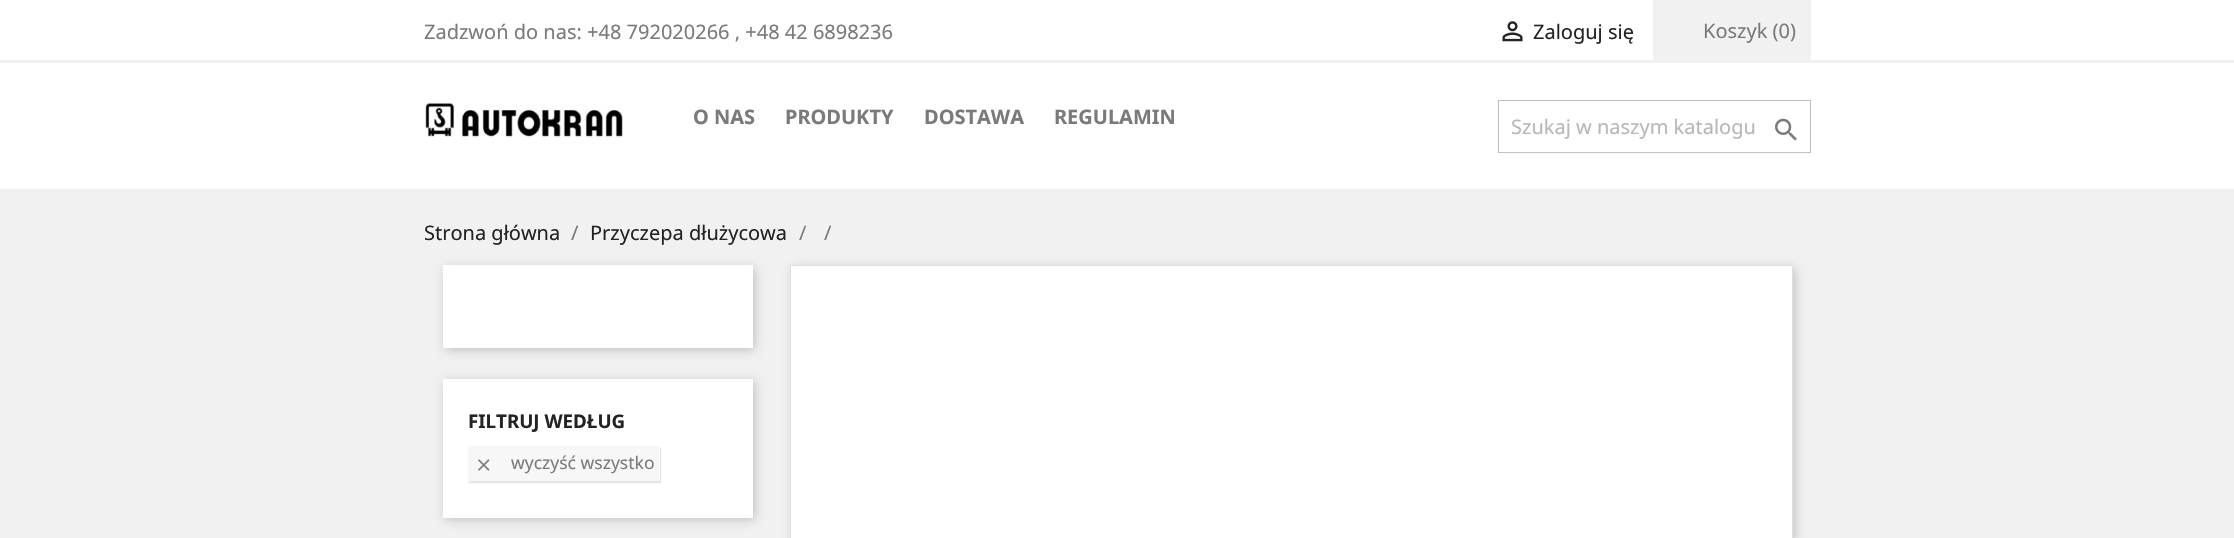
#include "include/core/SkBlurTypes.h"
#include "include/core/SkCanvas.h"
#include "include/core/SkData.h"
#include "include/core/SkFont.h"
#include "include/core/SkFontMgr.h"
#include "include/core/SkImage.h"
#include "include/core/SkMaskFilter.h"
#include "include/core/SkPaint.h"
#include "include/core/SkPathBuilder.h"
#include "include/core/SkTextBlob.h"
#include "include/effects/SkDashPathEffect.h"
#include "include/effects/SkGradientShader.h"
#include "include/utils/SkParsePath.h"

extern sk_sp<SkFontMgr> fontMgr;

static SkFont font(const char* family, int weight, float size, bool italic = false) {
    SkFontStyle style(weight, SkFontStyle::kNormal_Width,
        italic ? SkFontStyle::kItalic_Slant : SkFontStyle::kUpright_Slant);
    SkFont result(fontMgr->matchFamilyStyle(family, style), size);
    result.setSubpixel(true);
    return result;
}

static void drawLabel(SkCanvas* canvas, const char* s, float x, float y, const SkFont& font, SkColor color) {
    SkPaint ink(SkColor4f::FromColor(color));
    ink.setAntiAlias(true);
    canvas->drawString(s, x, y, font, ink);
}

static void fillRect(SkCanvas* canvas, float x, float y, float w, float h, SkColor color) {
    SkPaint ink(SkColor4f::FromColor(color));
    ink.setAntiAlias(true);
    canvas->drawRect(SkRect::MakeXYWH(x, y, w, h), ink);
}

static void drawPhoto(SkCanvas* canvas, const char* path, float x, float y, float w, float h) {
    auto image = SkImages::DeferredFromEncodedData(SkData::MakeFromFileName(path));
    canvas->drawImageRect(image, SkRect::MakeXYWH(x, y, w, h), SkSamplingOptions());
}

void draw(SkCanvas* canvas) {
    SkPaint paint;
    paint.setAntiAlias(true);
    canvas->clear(0xFFFFFFFF);
    fillRect(canvas, 0, 60, 2234, 3, 0xFFF1F1F1);
    SkFont font1 = font("Noto Sans", 400, 20);
    drawLabel(canvas, "Zadzwoń do nas: +48 792020266 , +48 42 6898236", 424, 39, font1, 0xFF7A7A7A);
    drawPhoto(canvas, "assets/img1.png", 1502, 21, 21, 21);
    drawLabel(canvas, "Zaloguj się", 1533, 39, font1, 0xFF232323);
    fillRect(canvas, 1653, 0, 158, 60, 0xFFF1F1F1);
    drawLabel(canvas, "Koszyk (0)", 1703, 38, font1, 0xFF7A7A7A);
    drawPhoto(canvas, "assets/img2.png", 425, 102, 198, 35);
    SkFont font2 = font("Noto Sans", 700, 20);
    drawLabel(canvas, "O NAS", 693, 124, font2, 0xFF7A7A7A);
    drawLabel(canvas, "PRODUKTY", 785, 124, font2, 0xFF7A7A7A);
    drawLabel(canvas, "DOSTAWA", 924, 124, font2, 0xFF7A7A7A);
    drawLabel(canvas, "REGULAMIN", 1054, 124, font2, 0xFF7A7A7A);
    paint.setStroke(true);
    paint.setStrokeWidth(1);
    paint.setColor(0xFFBFBFBF);
    canvas->drawRect(SkRect::MakeXYWH(1498.5f, 100.5f, 312, 52), paint);
    drawLabel(canvas, "Szukaj w naszym katalogu", 1511, 134, font1, 0xFFB7B7B7);
    drawPhoto(canvas, "assets/img3.png", 1775, 118, 22, 23);
    fillRect(canvas, 0, 189, 2234, 349, 0xFFF1F1F1);
    drawLabel(canvas, "Strona główna", 424, 240, font1, 0xFF232323);
    drawLabel(canvas, "/", 571, 240, font1, 0xFF7A7A7A);
    drawLabel(canvas, "Przyczepa dłużycowa", 590, 240, font1, 0xFF232323);
    drawLabel(canvas, "/", 799, 240, font1, 0xFF7A7A7A);
    drawLabel(canvas, "/", 824, 240, font1, 0xFF7A7A7A);
    paint.setStroke(false);
    paint.setColor(0x33000000);
    paint.setMaskFilter(SkMaskFilter::MakeBlur(kNormal_SkBlurStyle, 5));
    canvas->drawRect(SkRect::MakeXYWH(445, 268, 310, 82), paint);
    paint.setMaskFilter(nullptr);
    fillRect(canvas, 443, 265, 310, 83, 0xFFFFFFFF);
    paint.setMaskFilter(SkMaskFilter::MakeBlur(kNormal_SkBlurStyle, 5));
    canvas->drawRect(SkRect::MakeXYWH(445, 381, 310, 139), paint);
    paint.setMaskFilter(nullptr);
    fillRect(canvas, 443, 379, 310, 139, 0xFFFFFFFF);
    SkFont font3 = font("Noto Sans", 700, 18.75f);
    drawLabel(canvas, "FILTRUJ WEDŁUG", 468, 428, font3, 0xFF232323);
    paint.setColor(0x1A000000);
    paint.setMaskFilter(SkMaskFilter::MakeBlur(kNormal_SkBlurStyle, 0.5f));
    canvas->drawRect(SkRect::MakeXYWH(469, 448, 192, 35), paint);
    paint.setMaskFilter(nullptr);
    fillRect(canvas, 468, 446, 192, 35, 0xFFF7F7F7);
    drawPhoto(canvas, "assets/img4.png", 478, 459, 12, 12);
    SkFont font4 = font("Noto Sans", 400, 17.5f);
    drawLabel(canvas, "wyczyść wszystko", 511, 469, font4, 0xFF7A7A7A);
    paint.setColor(0x33000000);
    paint.setMaskFilter(SkMaskFilter::MakeBlur(kNormal_SkBlurStyle, 5));
    canvas->drawRect(SkRect::MakeXYWH(793, 268, 1002, 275), paint);
    paint.setMaskFilter(nullptr);
    paint.setColor(0xFFFFFFFF);
    canvas->drawRect(SkRect::MakeXYWH(790.5f, 265.5f, 1002, 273), paint);
    paint.setStroke(true);
    paint.setColor(0xFFDFDFDF);
    canvas->drawRect(SkRect::MakeXYWH(790.5f, 265.5f, 1002, 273), paint);
}
